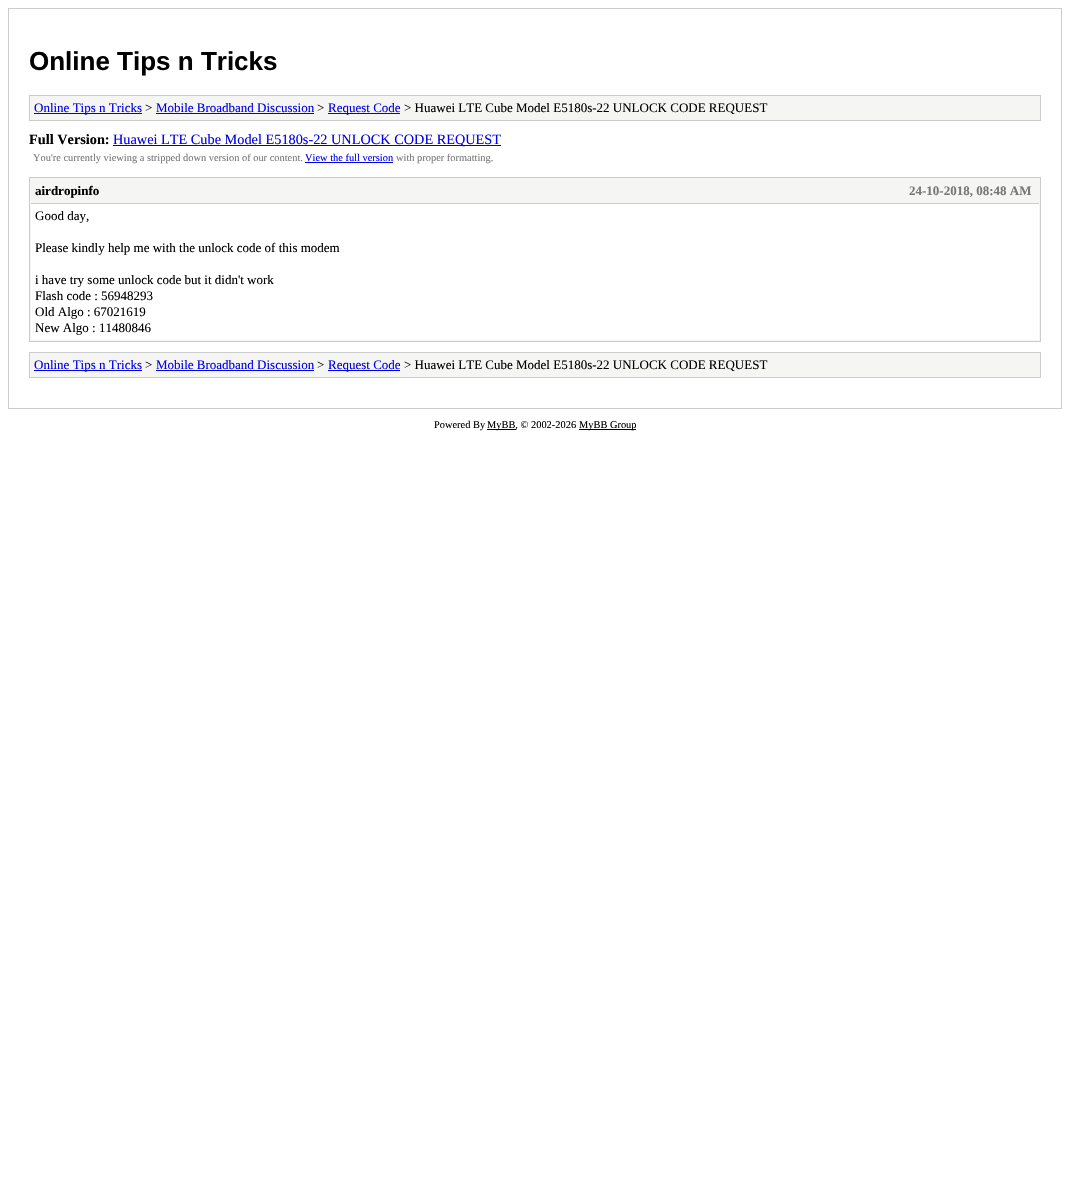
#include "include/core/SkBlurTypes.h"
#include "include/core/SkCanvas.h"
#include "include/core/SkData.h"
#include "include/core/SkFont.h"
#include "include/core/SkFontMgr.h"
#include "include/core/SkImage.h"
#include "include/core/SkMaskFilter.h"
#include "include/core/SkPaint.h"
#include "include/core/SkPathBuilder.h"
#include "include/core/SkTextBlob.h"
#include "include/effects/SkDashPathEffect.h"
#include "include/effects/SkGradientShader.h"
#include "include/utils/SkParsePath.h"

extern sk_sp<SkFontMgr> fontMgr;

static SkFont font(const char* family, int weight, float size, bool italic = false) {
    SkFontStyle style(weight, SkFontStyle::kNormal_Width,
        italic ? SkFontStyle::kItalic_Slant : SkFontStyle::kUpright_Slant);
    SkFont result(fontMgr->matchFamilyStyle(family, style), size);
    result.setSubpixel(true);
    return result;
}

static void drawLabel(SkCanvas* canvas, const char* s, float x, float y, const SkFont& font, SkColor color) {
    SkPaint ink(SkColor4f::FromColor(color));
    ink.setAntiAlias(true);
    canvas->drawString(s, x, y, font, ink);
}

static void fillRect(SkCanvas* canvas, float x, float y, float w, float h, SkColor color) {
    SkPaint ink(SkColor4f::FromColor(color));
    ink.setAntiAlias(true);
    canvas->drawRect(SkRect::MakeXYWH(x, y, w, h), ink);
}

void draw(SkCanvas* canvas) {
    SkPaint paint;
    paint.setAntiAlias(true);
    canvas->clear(0xFFFFFFFF);
    paint.setStroke(true);
    paint.setStrokeWidth(1);
    paint.setColor(0xFFCCCCCC);
    canvas->drawRect(SkRect::MakeXYWH(8.5f, 8.5f, 1053, 400), paint);
    SkFont font1 = font("Liberation Sans", 700, 26);
    drawLabel(canvas, "Online Tips n Tricks", 29, 70, font1, 0xFF000000);
    paint.setStroke(false);
    paint.setColor(0xFFF5F5F4);
    canvas->drawRect(SkRect::MakeXYWH(29.5f, 95.5f, 1011, 25), paint);
    paint.setStroke(true);
    paint.setColor(0xFFCCCCCC);
    canvas->drawRect(SkRect::MakeXYWH(29.5f, 95.5f, 1011, 25), paint);
    fillRect(canvas, 34, 113, 108, 1, 0xFF0000EE);
    SkFont font2 = font("Liberation Serif", 400, 13);
    drawLabel(canvas, "Online Tips n Tricks", 34, 112, font2, 0xFF0000EE);
    drawLabel(canvas, ">", 145, 112, font2, 0xFF000000);
    drawLabel(canvas, "Mobile Broadband Discussion", 156, 112, font2, 0xFF0000EE);
    fillRect(canvas, 156, 113, 158, 1, 0xFF0000EE);
    drawLabel(canvas, ">", 317, 112, font2, 0xFF000000);
    fillRect(canvas, 328, 113, 72, 1, 0xFF0000EE);
    drawLabel(canvas, "Request Code", 328, 112, font2, 0xFF0000EE);
    drawLabel(canvas, "> Huawei LTE Cube Model E5180s-22 UNLOCK CODE REQUEST", 404, 112, font2, 0xFF000000);
    SkFont font3 = font("Liberation Serif", 700, 14.3f);
    drawLabel(canvas, "Full Version:", 29, 144, font3, 0xFF000000);
    fillRect(canvas, 113, 145, 388, 1, 0xFF0000EE);
    SkFont font4 = font("Liberation Serif", 400, 14.3f);
    drawLabel(canvas, "Huawei LTE Cube Model E5180s-22 UNLOCK CODE REQUEST", 113, 144, font4, 0xFF0000EE);
    SkFont font5 = font("Liberation Serif", 400, 10.4f);
    drawLabel(canvas, "You're currently viewing a stripped down version of our content.", 33, 161, font5, 0xFF777777);
    drawLabel(canvas, "View the full version", 305, 161, font5, 0xFF0000EE);
    fillRect(canvas, 305, 162, 88, 1, 0xFF0000EE);
    drawLabel(canvas, "with proper formatting.", 396, 161, font5, 0xFF777777);
    paint.setStroke(false);
    paint.setColor(0xFFF5F5F4);
    canvas->drawRect(SkRect::MakeXYWH(29.5f, 177.5f, 1011, 164), paint);
    paint.setStroke(true);
    paint.setColor(0xFFCCCCCC);
    canvas->drawRect(SkRect::MakeXYWH(29.5f, 177.5f, 1011, 164), paint);
    fillRect(canvas, 31, 203, 1008, 1, 0xFFCCCCCC);
    SkFont font6 = font("Liberation Serif", 700, 13);
    drawLabel(canvas, "airdropinfo", 35, 195, font6, 0xFF000000);
    drawLabel(canvas, "24-10-2018, 08:48 AM", 909, 195, font6, 0xFF777777);
    fillRect(canvas, 31, 204, 1008, 136, 0xFFFFFFFF);
    drawLabel(canvas, "Good day,", 35, 220, font2, 0xFF000000);
    drawLabel(canvas, "Please kindly help me with the unlock code of this modem", 35, 252, font2, 0xFF000000);
    drawLabel(canvas, "i have try some unlock code but it didn't work", 35, 284, font2, 0xFF000000);
    drawLabel(canvas, "Flash code : 56948293", 35, 300, font2, 0xFF000000);
    drawLabel(canvas, "Old Algo : 67021619", 35, 316, font2, 0xFF000000);
    drawLabel(canvas, "New Algo : 11480846", 35, 332, font2, 0xFF000000);
    paint.setStroke(false);
    paint.setColor(0xFFF5F5F4);
    canvas->drawRect(SkRect::MakeXYWH(29.5f, 352.5f, 1011, 25), paint);
    paint.setStroke(true);
    paint.setColor(0xFFCCCCCC);
    canvas->drawRect(SkRect::MakeXYWH(29.5f, 352.5f, 1011, 25), paint);
    fillRect(canvas, 34, 370, 108, 1, 0xFF0000EE);
    drawLabel(canvas, "Online Tips n Tricks", 34, 369, font2, 0xFF0000EE);
    drawLabel(canvas, ">", 145, 369, font2, 0xFF000000);
    drawLabel(canvas, "Mobile Broadband Discussion", 156, 369, font2, 0xFF0000EE);
    fillRect(canvas, 156, 370, 158, 1, 0xFF0000EE);
    drawLabel(canvas, ">", 317, 369, font2, 0xFF000000);
    fillRect(canvas, 328, 370, 72, 1, 0xFF0000EE);
    drawLabel(canvas, "Request Code", 328, 369, font2, 0xFF0000EE);
    drawLabel(canvas, "> Huawei LTE Cube Model E5180s-22 UNLOCK CODE REQUEST", 404, 369, font2, 0xFF000000);
    drawLabel(canvas, "Powered By", 434, 428, font5, 0xFF000000);
    fillRect(canvas, 487, 429, 29, 1, 0xFF000000);
    drawLabel(canvas, "MyBB, © 2002-2026", 487, 428, font5, 0xFF000000);
    fillRect(canvas, 579, 429, 57, 1, 0xFF000000);
    drawLabel(canvas, "MyBB Group", 579, 428, font5, 0xFF000000);
}
